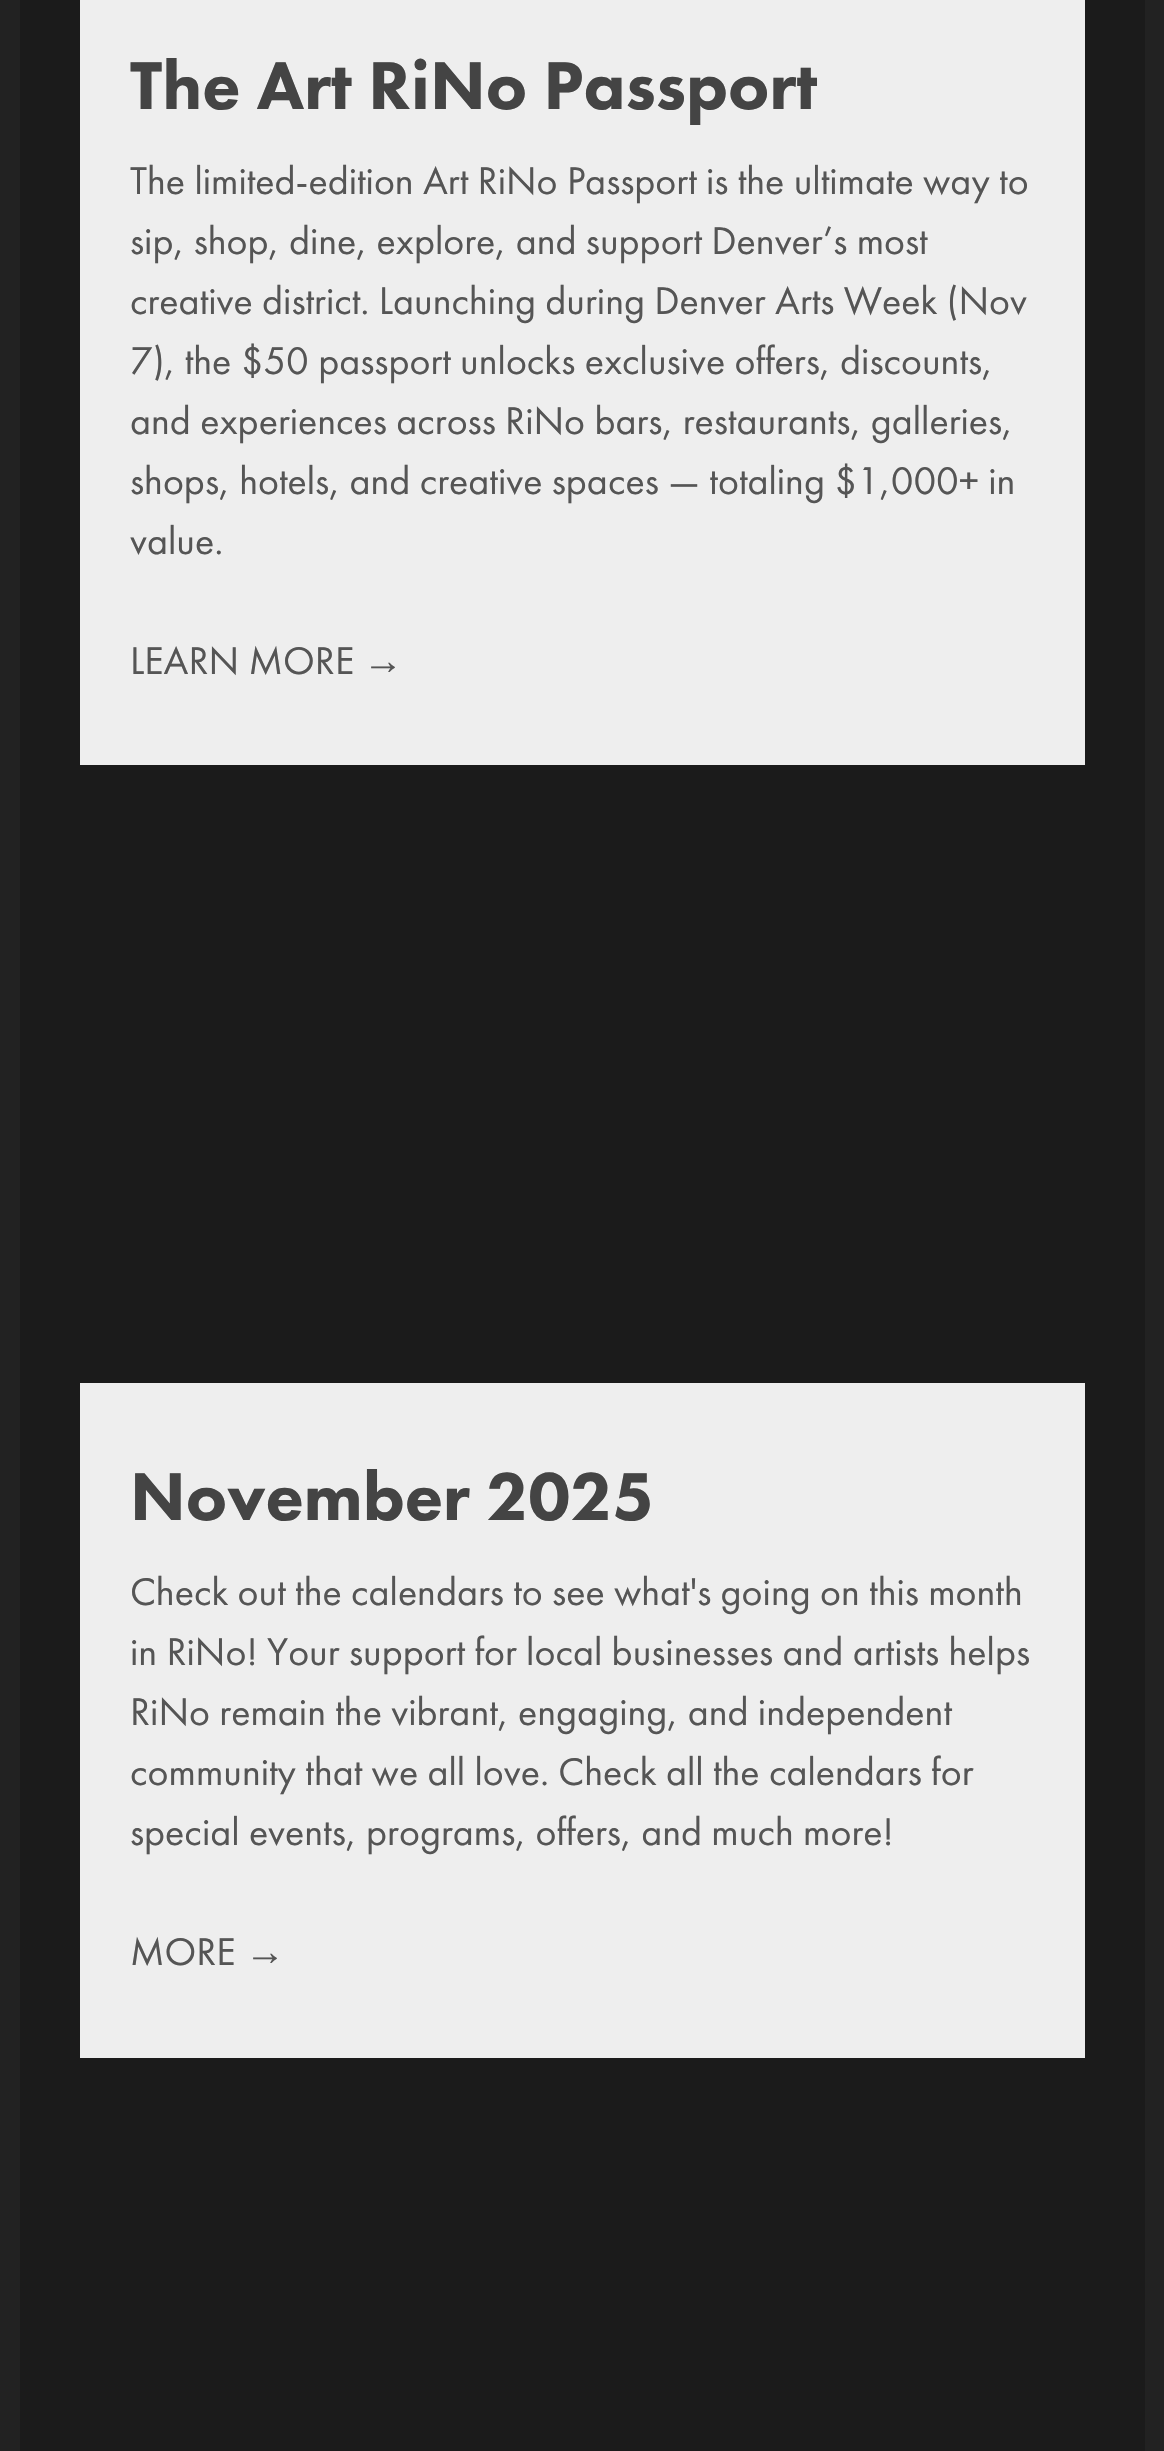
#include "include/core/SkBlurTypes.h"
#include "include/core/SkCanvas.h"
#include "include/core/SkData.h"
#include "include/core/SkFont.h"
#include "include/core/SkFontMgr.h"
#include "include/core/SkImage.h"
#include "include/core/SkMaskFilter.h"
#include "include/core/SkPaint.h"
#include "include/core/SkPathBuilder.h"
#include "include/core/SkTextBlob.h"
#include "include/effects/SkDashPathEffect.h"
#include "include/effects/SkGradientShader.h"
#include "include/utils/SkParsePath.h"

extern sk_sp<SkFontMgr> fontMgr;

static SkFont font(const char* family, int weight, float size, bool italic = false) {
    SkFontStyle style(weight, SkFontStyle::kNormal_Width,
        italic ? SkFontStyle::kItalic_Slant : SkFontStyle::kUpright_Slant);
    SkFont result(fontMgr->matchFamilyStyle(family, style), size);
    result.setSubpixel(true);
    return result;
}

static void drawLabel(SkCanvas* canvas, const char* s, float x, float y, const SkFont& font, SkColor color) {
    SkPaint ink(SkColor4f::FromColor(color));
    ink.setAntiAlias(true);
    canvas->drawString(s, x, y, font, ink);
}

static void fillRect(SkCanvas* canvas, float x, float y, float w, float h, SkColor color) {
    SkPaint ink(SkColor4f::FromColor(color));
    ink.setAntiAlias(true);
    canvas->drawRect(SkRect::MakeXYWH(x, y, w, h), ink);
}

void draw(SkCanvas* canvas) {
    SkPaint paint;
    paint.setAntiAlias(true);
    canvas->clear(0xFF222222);
    fillRect(canvas, 20, 0, 1125, 2451, 0xFF1B1B1B);
    fillRect(canvas, 80, 0, 1005, 765, 0xFFEEEEEE);
    SkFont font1 = font("Futura PT", 900, 70);
    drawLabel(canvas, "The Art RiNo Passport", 130, 109, font1, 0xFF444444);
    SkFont font2 = font("Futura PT", 400, 40);
    drawLabel(canvas, "The limited-edition Art RiNo Passport is the ultimate way to", 130, 194, font2, 0xFF555555);
    drawLabel(canvas, "sip, shop, dine, explore, and support Denver’s most", 130, 254, font2, 0xFF555555);
    drawLabel(canvas, "creative district. Launching during Denver Arts Week (Nov", 130, 314, font2, 0xFF555555);
    drawLabel(canvas, "7), the $50 passport unlocks exclusive offers, discounts,", 130, 374, font2, 0xFF555555);
    drawLabel(canvas, "and experiences across RiNo bars, restaurants, galleries,", 130, 434, font2, 0xFF555555);
    drawLabel(canvas, "shops, hotels, and creative spaces — totaling $1,000+ in", 130, 494, font2, 0xFF555555);
    drawLabel(canvas, "value.", 130, 554, font2, 0xFF555555);
    drawLabel(canvas, "LEARN MORE", 130, 674, font2, 0xFF555555);
    SkFont font3 = font("Liberation Sans", 400, 40);
    drawLabel(canvas, "→", 363, 674, font3, 0xFF555555);
    fillRect(canvas, 80, 1383, 1005, 675, 0xFFEEEEEE);
    drawLabel(canvas, "November 2025", 130, 1520, font1, 0xFF444444);
    drawLabel(canvas, "Check out the calendars to see what's going on this month", 130, 1605, font2, 0xFF555555);
    drawLabel(canvas, "in RiNo! Your support for local businesses and artists helps", 130, 1665, font2, 0xFF555555);
    drawLabel(canvas, "RiNo remain the vibrant, engaging, and independent", 130, 1725, font2, 0xFF555555);
    drawLabel(canvas, "community that we all love. Check all the calendars for", 130, 1785, font2, 0xFF555555);
    drawLabel(canvas, "special events, programs, offers, and much more!", 130, 1845, font2, 0xFF555555);
    drawLabel(canvas, "MORE", 130, 1965, font2, 0xFF555555);
    drawLabel(canvas, "→", 245, 1965, font3, 0xFF555555);
}
